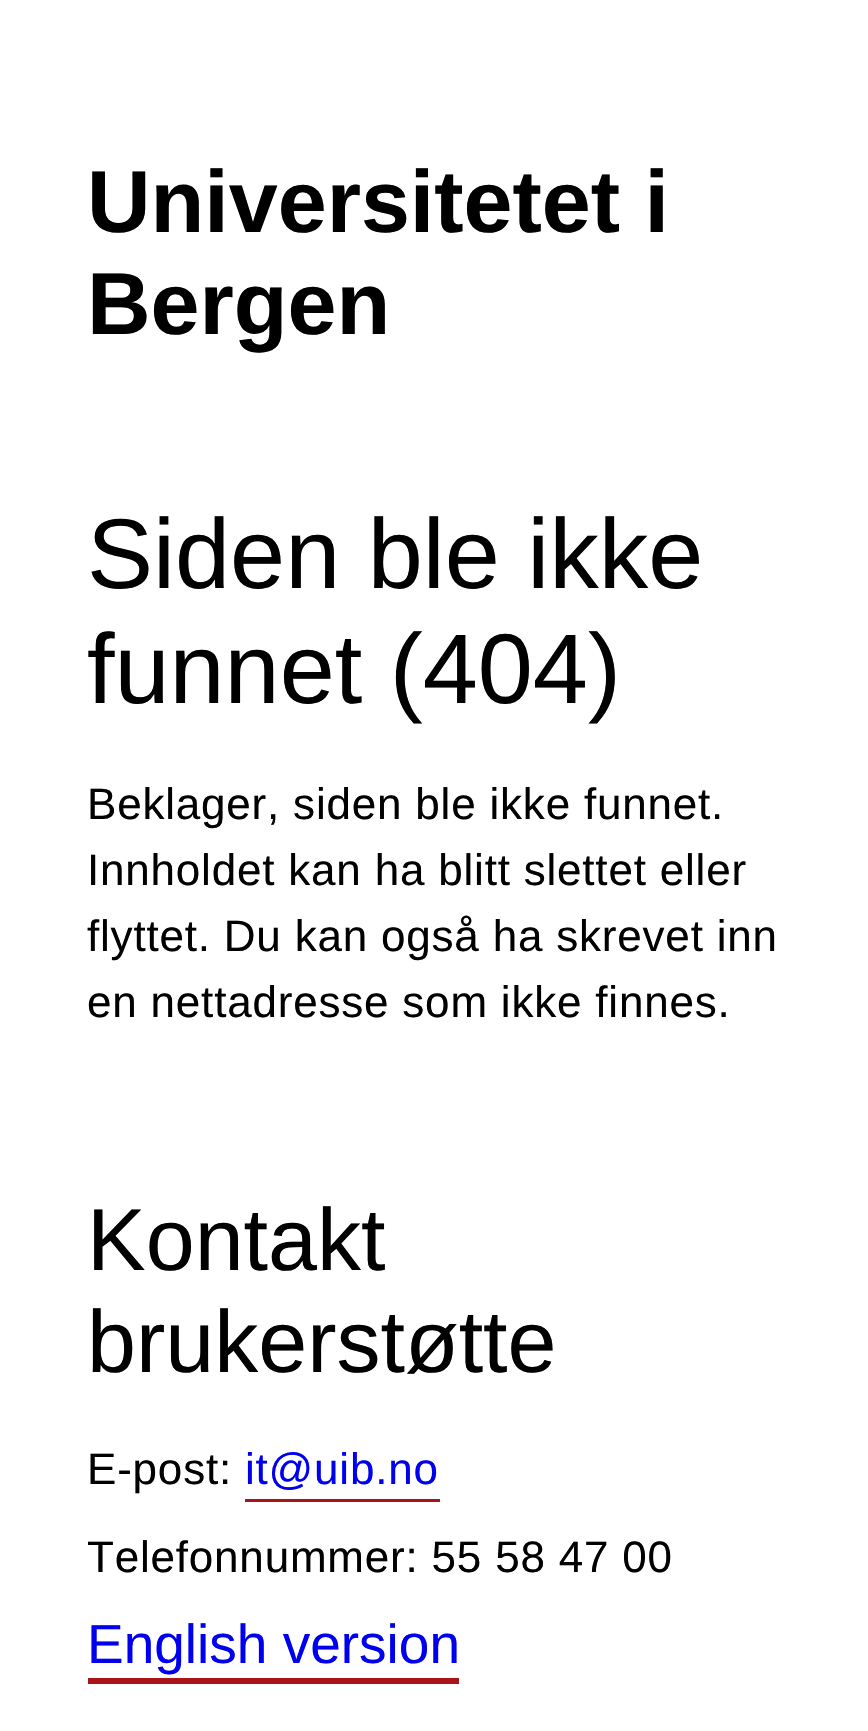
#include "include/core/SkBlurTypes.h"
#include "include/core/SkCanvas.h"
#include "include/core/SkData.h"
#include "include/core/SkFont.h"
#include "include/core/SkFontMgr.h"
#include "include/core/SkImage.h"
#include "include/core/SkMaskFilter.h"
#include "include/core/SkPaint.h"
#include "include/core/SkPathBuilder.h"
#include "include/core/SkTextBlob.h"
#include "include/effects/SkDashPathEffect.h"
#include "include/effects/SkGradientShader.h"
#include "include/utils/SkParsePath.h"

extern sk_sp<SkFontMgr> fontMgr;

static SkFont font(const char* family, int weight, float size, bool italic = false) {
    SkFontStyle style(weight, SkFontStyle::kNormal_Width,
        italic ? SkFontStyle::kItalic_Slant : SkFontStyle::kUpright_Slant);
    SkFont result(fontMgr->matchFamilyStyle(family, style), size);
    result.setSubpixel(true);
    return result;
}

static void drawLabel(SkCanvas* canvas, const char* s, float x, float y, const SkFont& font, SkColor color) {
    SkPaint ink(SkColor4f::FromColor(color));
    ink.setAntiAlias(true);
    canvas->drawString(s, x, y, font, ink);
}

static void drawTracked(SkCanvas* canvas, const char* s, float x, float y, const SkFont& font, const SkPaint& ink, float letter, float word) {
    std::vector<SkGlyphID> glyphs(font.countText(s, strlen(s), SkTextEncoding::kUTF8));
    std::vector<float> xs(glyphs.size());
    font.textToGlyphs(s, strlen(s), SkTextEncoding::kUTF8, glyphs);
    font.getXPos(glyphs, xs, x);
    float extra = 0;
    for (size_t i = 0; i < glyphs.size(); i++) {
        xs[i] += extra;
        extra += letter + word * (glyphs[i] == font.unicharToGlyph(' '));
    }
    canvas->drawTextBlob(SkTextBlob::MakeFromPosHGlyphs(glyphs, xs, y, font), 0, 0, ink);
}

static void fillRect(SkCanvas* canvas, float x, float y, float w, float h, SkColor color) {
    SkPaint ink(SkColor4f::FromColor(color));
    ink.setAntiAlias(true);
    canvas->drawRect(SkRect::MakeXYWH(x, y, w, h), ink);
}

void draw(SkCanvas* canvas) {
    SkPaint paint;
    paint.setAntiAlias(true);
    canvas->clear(0xFFFFFFFF);
    SkFont font1 = font("Liberation Sans", 700, 88);
    drawLabel(canvas, "Universitetet i", 87, 232, font1, 0xFF000000);
    drawLabel(canvas, "Bergen", 87, 334, font1, 0xFF000000);
    SkFont font2 = font("Liberation Sans", 400, 99);
    drawLabel(canvas, "Siden ble ikke", 87, 588, font2, 0xFF000000);
    drawLabel(canvas, "funnet (404)", 87, 703, font2, 0xFF000000);
    SkFont font3 = font("Liberation Sans", 400, 44);
    paint.setColor(0xFF000000);
    drawTracked(canvas, "Beklager, siden ble ikke funnet.", 87, 819, font3, paint, 0.8f, 0);
    drawTracked(canvas, "Innholdet kan ha blitt slettet eller", 87, 885, font3, paint, 0.8f, 0);
    drawTracked(canvas, "flyttet. Du kan også ha skrevet inn", 87, 951, font3, paint, 0.8f, 0);
    drawTracked(canvas, "en nettadresse som ikke finnes.", 87, 1017, font3, paint, 0.8f, 0);
    SkFont font4 = font("Liberation Sans", 400, 88);
    drawLabel(canvas, "Kontakt", 87, 1270, font4, 0xFF000000);
    drawLabel(canvas, "brukerstøtte", 87, 1372, font4, 0xFF000000);
    drawTracked(canvas, "E-post:", 87, 1484, font3, paint, 0.8f, 0);
    paint.setColor(0xFF0000EE);
    drawTracked(canvas, "it@uib.no", 245, 1484, font3, paint, 0.8f, 0);
    fillRect(canvas, 245, 1499, 195, 3, 0xFFAA1317);
    paint.setColor(0xFF000000);
    drawTracked(canvas, "Telefonnummer: 55 58 47 00", 87, 1572, font3, paint, 0.8f, 0);
    SkFont font5 = font("Liberation Sans", 400, 55);
    drawLabel(canvas, "English version", 87, 1663, font5, 0xFF0000EE);
    fillRect(canvas, 88, 1678, 371, 6, 0xFFAA1317);
}
